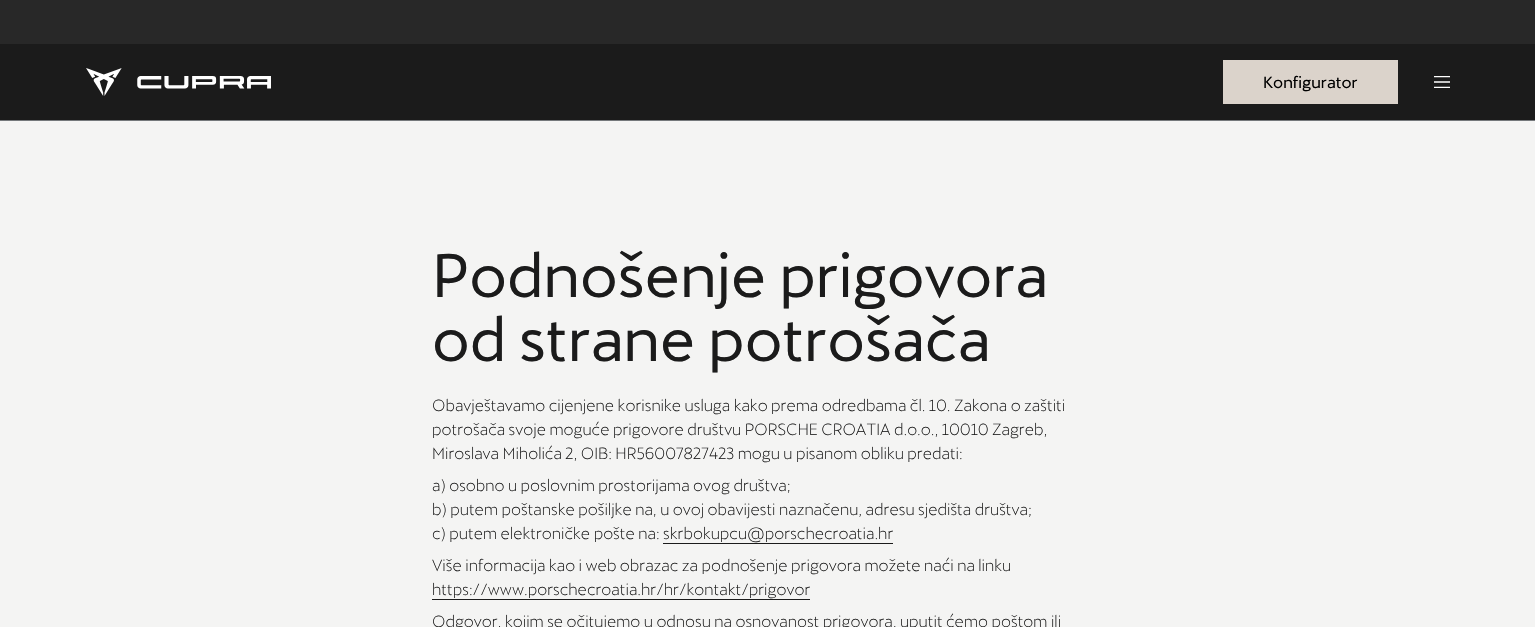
#include "include/core/SkBlurTypes.h"
#include "include/core/SkCanvas.h"
#include "include/core/SkData.h"
#include "include/core/SkFont.h"
#include "include/core/SkFontMgr.h"
#include "include/core/SkImage.h"
#include "include/core/SkMaskFilter.h"
#include "include/core/SkPaint.h"
#include "include/core/SkPathBuilder.h"
#include "include/core/SkTextBlob.h"
#include "include/effects/SkDashPathEffect.h"
#include "include/effects/SkGradientShader.h"
#include "include/utils/SkParsePath.h"

extern sk_sp<SkFontMgr> fontMgr;

static SkFont font(const char* family, int weight, float size, bool italic = false) {
    SkFontStyle style(weight, SkFontStyle::kNormal_Width,
        italic ? SkFontStyle::kItalic_Slant : SkFontStyle::kUpright_Slant);
    SkFont result(fontMgr->matchFamilyStyle(family, style), size);
    result.setSubpixel(true);
    return result;
}

static void drawLabel(SkCanvas* canvas, const char* s, float x, float y, const SkFont& font, SkColor color) {
    SkPaint ink(SkColor4f::FromColor(color));
    ink.setAntiAlias(true);
    canvas->drawString(s, x, y, font, ink);
}

static void fillRect(SkCanvas* canvas, float x, float y, float w, float h, SkColor color) {
    SkPaint ink(SkColor4f::FromColor(color));
    ink.setAntiAlias(true);
    canvas->drawRect(SkRect::MakeXYWH(x, y, w, h), ink);
}

static void drawPhoto(SkCanvas* canvas, const char* path, float x, float y, float w, float h) {
    auto image = SkImages::DeferredFromEncodedData(SkData::MakeFromFileName(path));
    canvas->drawImageRect(image, SkRect::MakeXYWH(x, y, w, h), SkSamplingOptions());
}

void draw(SkCanvas* canvas) {
    SkPaint paint;
    paint.setAntiAlias(true);
    canvas->clear(0xFF1B1B1B);
    fillRect(canvas, 0, 120, 1535, 1, 0xFF75787B);
    fillRect(canvas, 0, 0, 1535, 44, 0xFF282828);
    drawPhoto(canvas, "assets/img1.png", 86, 68, 185, 28);
    fillRect(canvas, 1223, 60, 175, 44, 0xFFDBD3CB);
    SkFont font1 = font("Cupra", 400, 16);
    drawLabel(canvas, "Konfigurator", 1263, 88, font1, 0xFF000000);
    drawPhoto(canvas, "assets/img2.png", 1434, 76, 16, 12);
    fillRect(canvas, 0, 121, 1535, 506, 0xFFF4F4F3);
    SkFont font2 = font("Cupra", 400, 60);
    drawLabel(canvas, "Podnošenje prigovora", 432, 297, font2, 0xFF1B1B1B);
    drawLabel(canvas, "od strane potrošača", 432, 361, font2, 0xFF1B1B1B);
    SkFont font3 = font("Cupra", 300, 16);
    drawLabel(canvas, "Obavještavamo cijenjene korisnike usluga kako prema odredbama čl. 10. Zakona o zaštiti", 432, 411, font3, 0xFF1B1B1B);
    drawLabel(canvas, "potrošača svoje moguće prigovore društvu PORSCHE CROATIA d.o.o., 10010 Zagreb,", 432, 435, font3, 0xFF1B1B1B);
    drawLabel(canvas, "Miroslava Miholića 2, OIB: HR56007827423 mogu u pisanom obliku predati:", 432, 459, font3, 0xFF1B1B1B);
    drawLabel(canvas, "a) osobno u poslovnim prostorijama ovog društva;", 432, 491, font3, 0xFF1B1B1B);
    drawLabel(canvas, "b) putem poštanske pošiljke na, u ovoj obavijesti naznačenu, adresu sjedišta društva;", 432, 515, font3, 0xFF1B1B1B);
    drawLabel(canvas, "c) putem elektroničke pošte na: skrbokupcu@porschecroatia.hr", 432, 539, font3, 0xFF1B1B1B);
    fillRect(canvas, 663, 543, 230, 1, 0xFF1B1B1B);
    drawLabel(canvas, "Više informacija kao i web obrazac za podnošenje prigovora možete naći na linku", 432, 571, font3, 0xFF1B1B1B);
    drawLabel(canvas, "https://www.porschecroatia.hr/hr/kontakt/prigovor", 432, 595, font3, 0xFF1B1B1B);
    fillRect(canvas, 432, 599, 378, 1, 0xFF1B1B1B);
    drawLabel(canvas, "Odgovor, kojim se očitujemo u odnosu na osnovanost prigovora, uputit ćemo poštom ili", 432, 627, font3, 0xFF1B1B1B);
}
